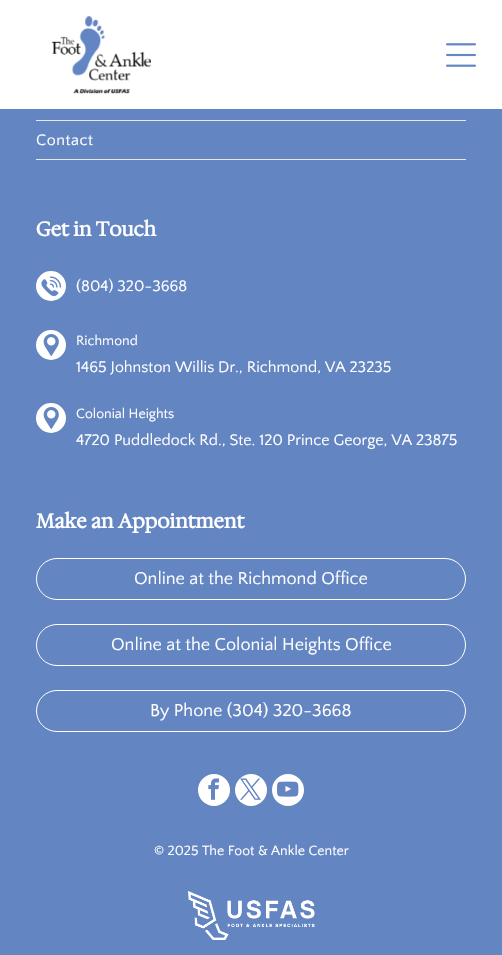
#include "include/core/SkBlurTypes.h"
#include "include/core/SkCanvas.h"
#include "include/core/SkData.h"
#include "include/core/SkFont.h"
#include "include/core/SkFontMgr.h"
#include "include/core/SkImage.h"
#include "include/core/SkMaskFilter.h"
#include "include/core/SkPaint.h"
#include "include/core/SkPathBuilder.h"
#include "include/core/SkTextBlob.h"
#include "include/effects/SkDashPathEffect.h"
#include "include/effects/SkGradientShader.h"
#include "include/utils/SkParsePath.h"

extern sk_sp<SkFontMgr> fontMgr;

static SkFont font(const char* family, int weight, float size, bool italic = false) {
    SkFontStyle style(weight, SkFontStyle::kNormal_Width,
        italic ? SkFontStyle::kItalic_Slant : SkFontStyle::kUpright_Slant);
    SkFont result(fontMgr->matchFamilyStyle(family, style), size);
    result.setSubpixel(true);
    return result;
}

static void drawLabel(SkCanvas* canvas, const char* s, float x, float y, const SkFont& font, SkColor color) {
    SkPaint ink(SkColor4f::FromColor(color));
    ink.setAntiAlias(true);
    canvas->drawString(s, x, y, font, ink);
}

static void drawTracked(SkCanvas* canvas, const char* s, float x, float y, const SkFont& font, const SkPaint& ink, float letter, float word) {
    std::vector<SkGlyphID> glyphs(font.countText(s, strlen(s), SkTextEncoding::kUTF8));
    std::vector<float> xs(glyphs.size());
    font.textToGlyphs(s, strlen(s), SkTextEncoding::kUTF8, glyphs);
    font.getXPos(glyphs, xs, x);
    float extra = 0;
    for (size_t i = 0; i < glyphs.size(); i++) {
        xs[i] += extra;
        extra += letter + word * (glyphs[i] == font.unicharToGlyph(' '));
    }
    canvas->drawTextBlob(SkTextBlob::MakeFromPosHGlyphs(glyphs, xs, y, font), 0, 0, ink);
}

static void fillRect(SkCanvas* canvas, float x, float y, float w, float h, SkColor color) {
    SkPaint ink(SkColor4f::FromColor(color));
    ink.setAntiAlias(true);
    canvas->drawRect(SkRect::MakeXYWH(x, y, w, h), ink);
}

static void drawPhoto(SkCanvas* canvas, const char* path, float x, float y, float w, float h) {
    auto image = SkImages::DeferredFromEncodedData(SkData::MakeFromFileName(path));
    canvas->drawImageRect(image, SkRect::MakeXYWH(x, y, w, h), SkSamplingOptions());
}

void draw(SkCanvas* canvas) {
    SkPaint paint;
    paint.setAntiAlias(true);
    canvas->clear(0xFF6385C2);
    fillRect(canvas, 0, 0, 502, 109, 0xFFFFFFFF);
    drawPhoto(canvas, "assets/img1.png", 51, 16, 100, 78);
    drawPhoto(canvas, "assets/img2.png", 446, 43, 30, 24);
    fillRect(canvas, 36, 120, 430, 1, 0xFFE7E8EA);
    SkFont font1 = font("Quattrocento Sans", 400, 16);
    paint.setColor(0xFFFFFFFF);
    drawTracked(canvas, "Contact", 36, 145, font1, paint, 0.5f, 0);
    fillRect(canvas, 36, 159, 430, 1, 0xFFE7E8EA);
    SkFont font2 = font("Hedvig Letters Serif", 700, 20);
    drawLabel(canvas, "Get in Touch", 36, 236, font2, 0xFFFFFFFF);
    canvas->drawCircle(51, 286, 15, paint);
    drawPhoto(canvas, "assets/img3.png", 41, 276, 21, 21);
    drawLabel(canvas, "(804) 320-3668", 76, 291, font1, 0xFFFFFFFF);
    canvas->drawCircle(51, 345, 15, paint);
    drawPhoto(canvas, "assets/img4.png", 43, 334, 16, 22);
    SkFont font3 = font("Quattrocento Sans", 400, 14);
    drawLabel(canvas, "Richmond", 76, 345, font3, 0xFFFFFFFF);
    drawLabel(canvas, "1465 Johnston Willis Dr., Richmond, VA 23235", 76, 372, font1, 0xFFFFFFFF);
    canvas->drawCircle(51, 418, 15, paint);
    drawPhoto(canvas, "assets/img4.png", 43, 407, 16, 22);
    drawLabel(canvas, "Colonial Heights", 76, 418, font3, 0xFFFFFFFF);
    drawLabel(canvas, "4720 Puddledock Rd., Ste. 120 Prince George, VA 23875", 76, 445, font1, 0xFFFFFFFF);
    drawLabel(canvas, "Make an Appointment", 36, 528, font2, 0xFFFFFFFF);
    paint.setStroke(true);
    paint.setStrokeWidth(1);
    canvas->drawRoundRect(SkRect::MakeXYWH(36.5f, 558.5f, 429, 41), 20.5f, 20.5f, paint);
    SkFont font4 = font("Quattrocento Sans", 400, 18);
    drawLabel(canvas, "Online at the Richmond Office", 134, 584, font4, 0xFFFFFFFF);
    canvas->drawRoundRect(SkRect::MakeXYWH(36.5f, 624.5f, 429, 41), 20.5f, 20.5f, paint);
    drawLabel(canvas, "Online at the Colonial Heights Office", 111, 650, font4, 0xFFFFFFFF);
    canvas->drawRoundRect(SkRect::MakeXYWH(36.5f, 690.5f, 429, 41), 20.5f, 20.5f, paint);
    drawLabel(canvas, "By Phone (304) 320-3668", 150, 716, font4, 0xFFFFFFFF);
    paint.setStroke(false);
    canvas->drawCircle(214, 790, 16, paint);
    drawPhoto(canvas, "assets/img5.png", 208, 778, 11, 22);
    canvas->drawCircle(251, 790, 16, paint);
    drawPhoto(canvas, "assets/img6.png", 240, 778, 21, 22);
    canvas->drawCircle(288, 790, 16, paint);
    drawPhoto(canvas, "assets/img7.png", 277, 781, 22, 16);
    drawLabel(canvas, "© 2025 The Foot & Ankle Center", 154, 855, font3, 0xFFFFFFFF);
    drawPhoto(canvas, "assets/img8.png", 188, 891, 127, 49);
}
